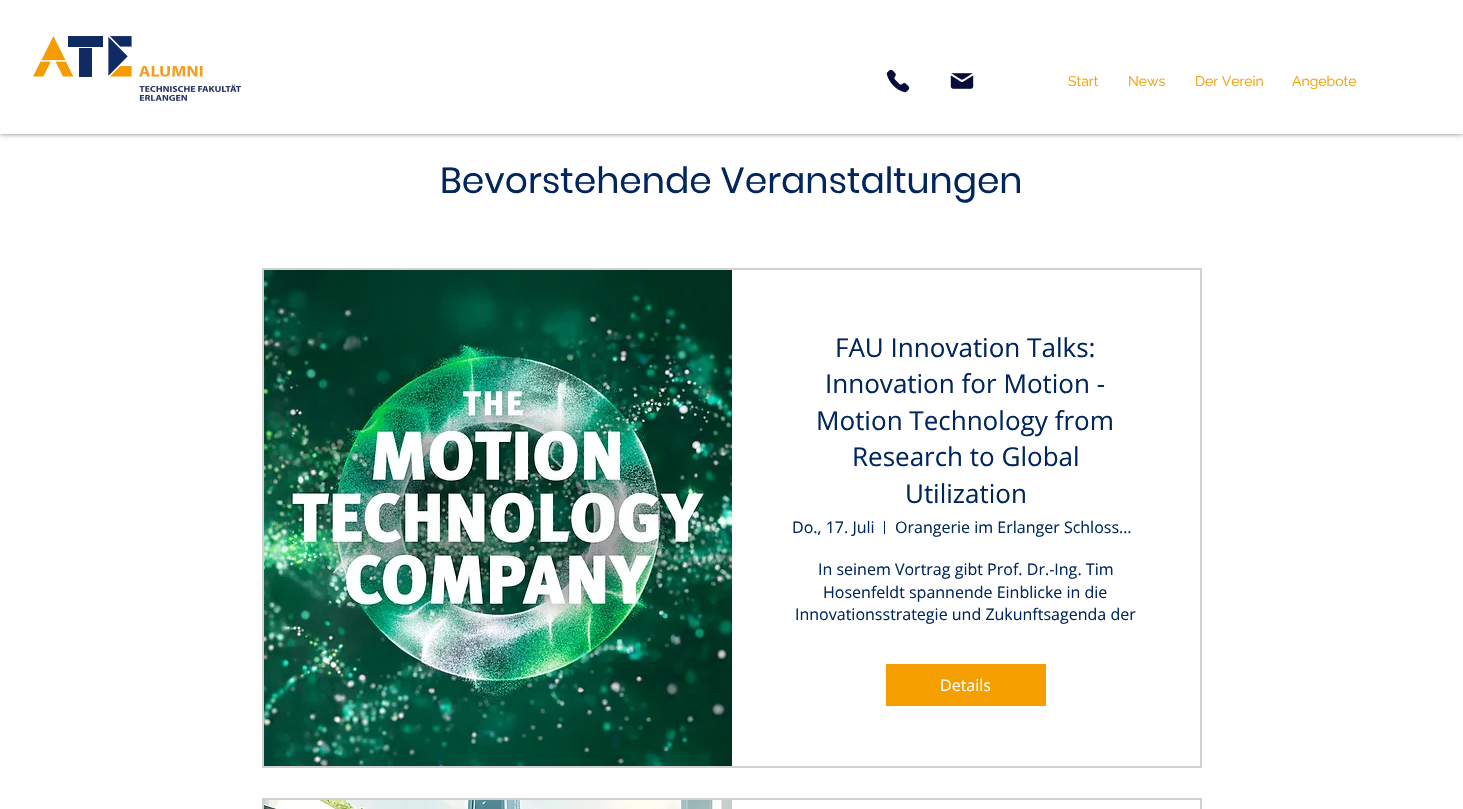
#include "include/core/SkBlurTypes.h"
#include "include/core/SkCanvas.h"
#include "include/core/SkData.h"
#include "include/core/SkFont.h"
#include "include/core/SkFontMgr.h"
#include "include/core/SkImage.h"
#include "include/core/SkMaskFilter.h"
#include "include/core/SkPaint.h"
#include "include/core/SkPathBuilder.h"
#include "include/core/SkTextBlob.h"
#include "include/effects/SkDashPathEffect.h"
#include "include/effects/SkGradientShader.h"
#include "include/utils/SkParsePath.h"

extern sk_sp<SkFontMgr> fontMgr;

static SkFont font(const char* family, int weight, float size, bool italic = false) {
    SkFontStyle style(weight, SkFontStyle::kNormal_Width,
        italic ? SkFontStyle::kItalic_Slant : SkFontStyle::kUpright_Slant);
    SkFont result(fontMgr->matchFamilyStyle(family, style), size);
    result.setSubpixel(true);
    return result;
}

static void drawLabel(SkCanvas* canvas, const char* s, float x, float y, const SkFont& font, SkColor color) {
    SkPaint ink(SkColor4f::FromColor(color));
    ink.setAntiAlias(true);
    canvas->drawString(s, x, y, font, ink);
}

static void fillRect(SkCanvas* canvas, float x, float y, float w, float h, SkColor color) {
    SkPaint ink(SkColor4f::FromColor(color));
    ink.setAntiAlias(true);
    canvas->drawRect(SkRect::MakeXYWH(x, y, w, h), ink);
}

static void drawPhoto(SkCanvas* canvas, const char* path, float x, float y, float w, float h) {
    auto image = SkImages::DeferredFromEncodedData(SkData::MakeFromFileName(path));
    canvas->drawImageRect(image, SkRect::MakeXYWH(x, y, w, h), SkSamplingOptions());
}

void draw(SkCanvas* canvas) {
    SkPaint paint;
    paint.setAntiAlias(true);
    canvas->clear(0xFFFFFFFF);
    paint.setColor(0x80000000);
    paint.setMaskFilter(SkMaskFilter::MakeBlur(kNormal_SkBlurStyle, 2.5f));
    canvas->drawRect(SkRect::MakeXYWH(0, 0, 1463, 134), paint);
    paint.setMaskFilter(nullptr);
    fillRect(canvas, 0, 0, 1463, 134, 0xFFFFFFFF);
    drawPhoto(canvas, "assets/img1.png", 33, 36, 208, 65);
    drawPhoto(canvas, "assets/img2.png", 886, 69, 24, 24);
    drawPhoto(canvas, "assets/img3.png", 950, 73, 24, 16);
    SkFont font1 = font("Raleway", 400, 14);
    drawLabel(canvas, "Start", 1068, 86, font1, 0xFFF49E00);
    drawLabel(canvas, "News", 1128, 86, font1, 0xFFF49E00);
    drawLabel(canvas, "Der Verein", 1195, 86, font1, 0xFFF49E00);
    drawLabel(canvas, "Angebote", 1292, 86, font1, 0xFFF49E00);
    SkFont font2 = font("Poppins", 400, 36);
    drawLabel(canvas, "Bevorstehende Veranstaltungen", 440, 193, font2, 0xFF00265D);
    paint.setStroke(true);
    paint.setStrokeWidth(2);
    paint.setColor(0xFFD1D1D1);
    canvas->drawRect(SkRect::MakeXYWH(263, 269, 938, 498), paint);
    drawPhoto(canvas, "assets/img4.png", 264, 270, 468, 496);
    SkFont font3 = font("Open Sans", 400, 26);
    drawLabel(canvas, "FAU Innovation Talks:", 835, 357, font3, 0xFF00265D);
    drawLabel(canvas, "Innovation for Motion -", 825, 393, font3, 0xFF00265D);
    drawLabel(canvas, "Motion Technology from", 816, 430, font3, 0xFF00265D);
    drawLabel(canvas, "Research to Global", 852, 466, font3, 0xFF00265D);
    drawLabel(canvas, "Utilization", 905, 503, font3, 0xFF00265D);
    SkFont font4 = font("Open Sans", 400, 16);
    drawLabel(canvas, "Do., 17. Juli", 792, 533, font4, 0xFF00265D);
    fillRect(canvas, 884, 521, 1, 13, 0xFF00265D);
    drawLabel(canvas, "Orangerie im Erlanger Schloss…", 895, 533, font4, 0xFF00265D);
    drawLabel(canvas, "In seinem Vortrag gibt Prof. Dr.-Ing. Tim", 818, 575, font4, 0xFF00265D);
    drawLabel(canvas, "Hosenfeldt spannende Einblicke in die", 823, 598, font4, 0xFF00265D);
    drawLabel(canvas, "Innovationsstrategie und Zukunftsagenda der", 795, 620, font4, 0xFF00265D);
    fillRect(canvas, 886, 664, 160, 42, 0xFFF49E00);
    drawLabel(canvas, "Details", 940, 691, font4, 0xFFFFFFFF);
    canvas->drawRect(SkRect::MakeXYWH(263, 799, 938, 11), paint);
    drawPhoto(canvas, "assets/img5.png", 264, 800, 468, 9);
}
